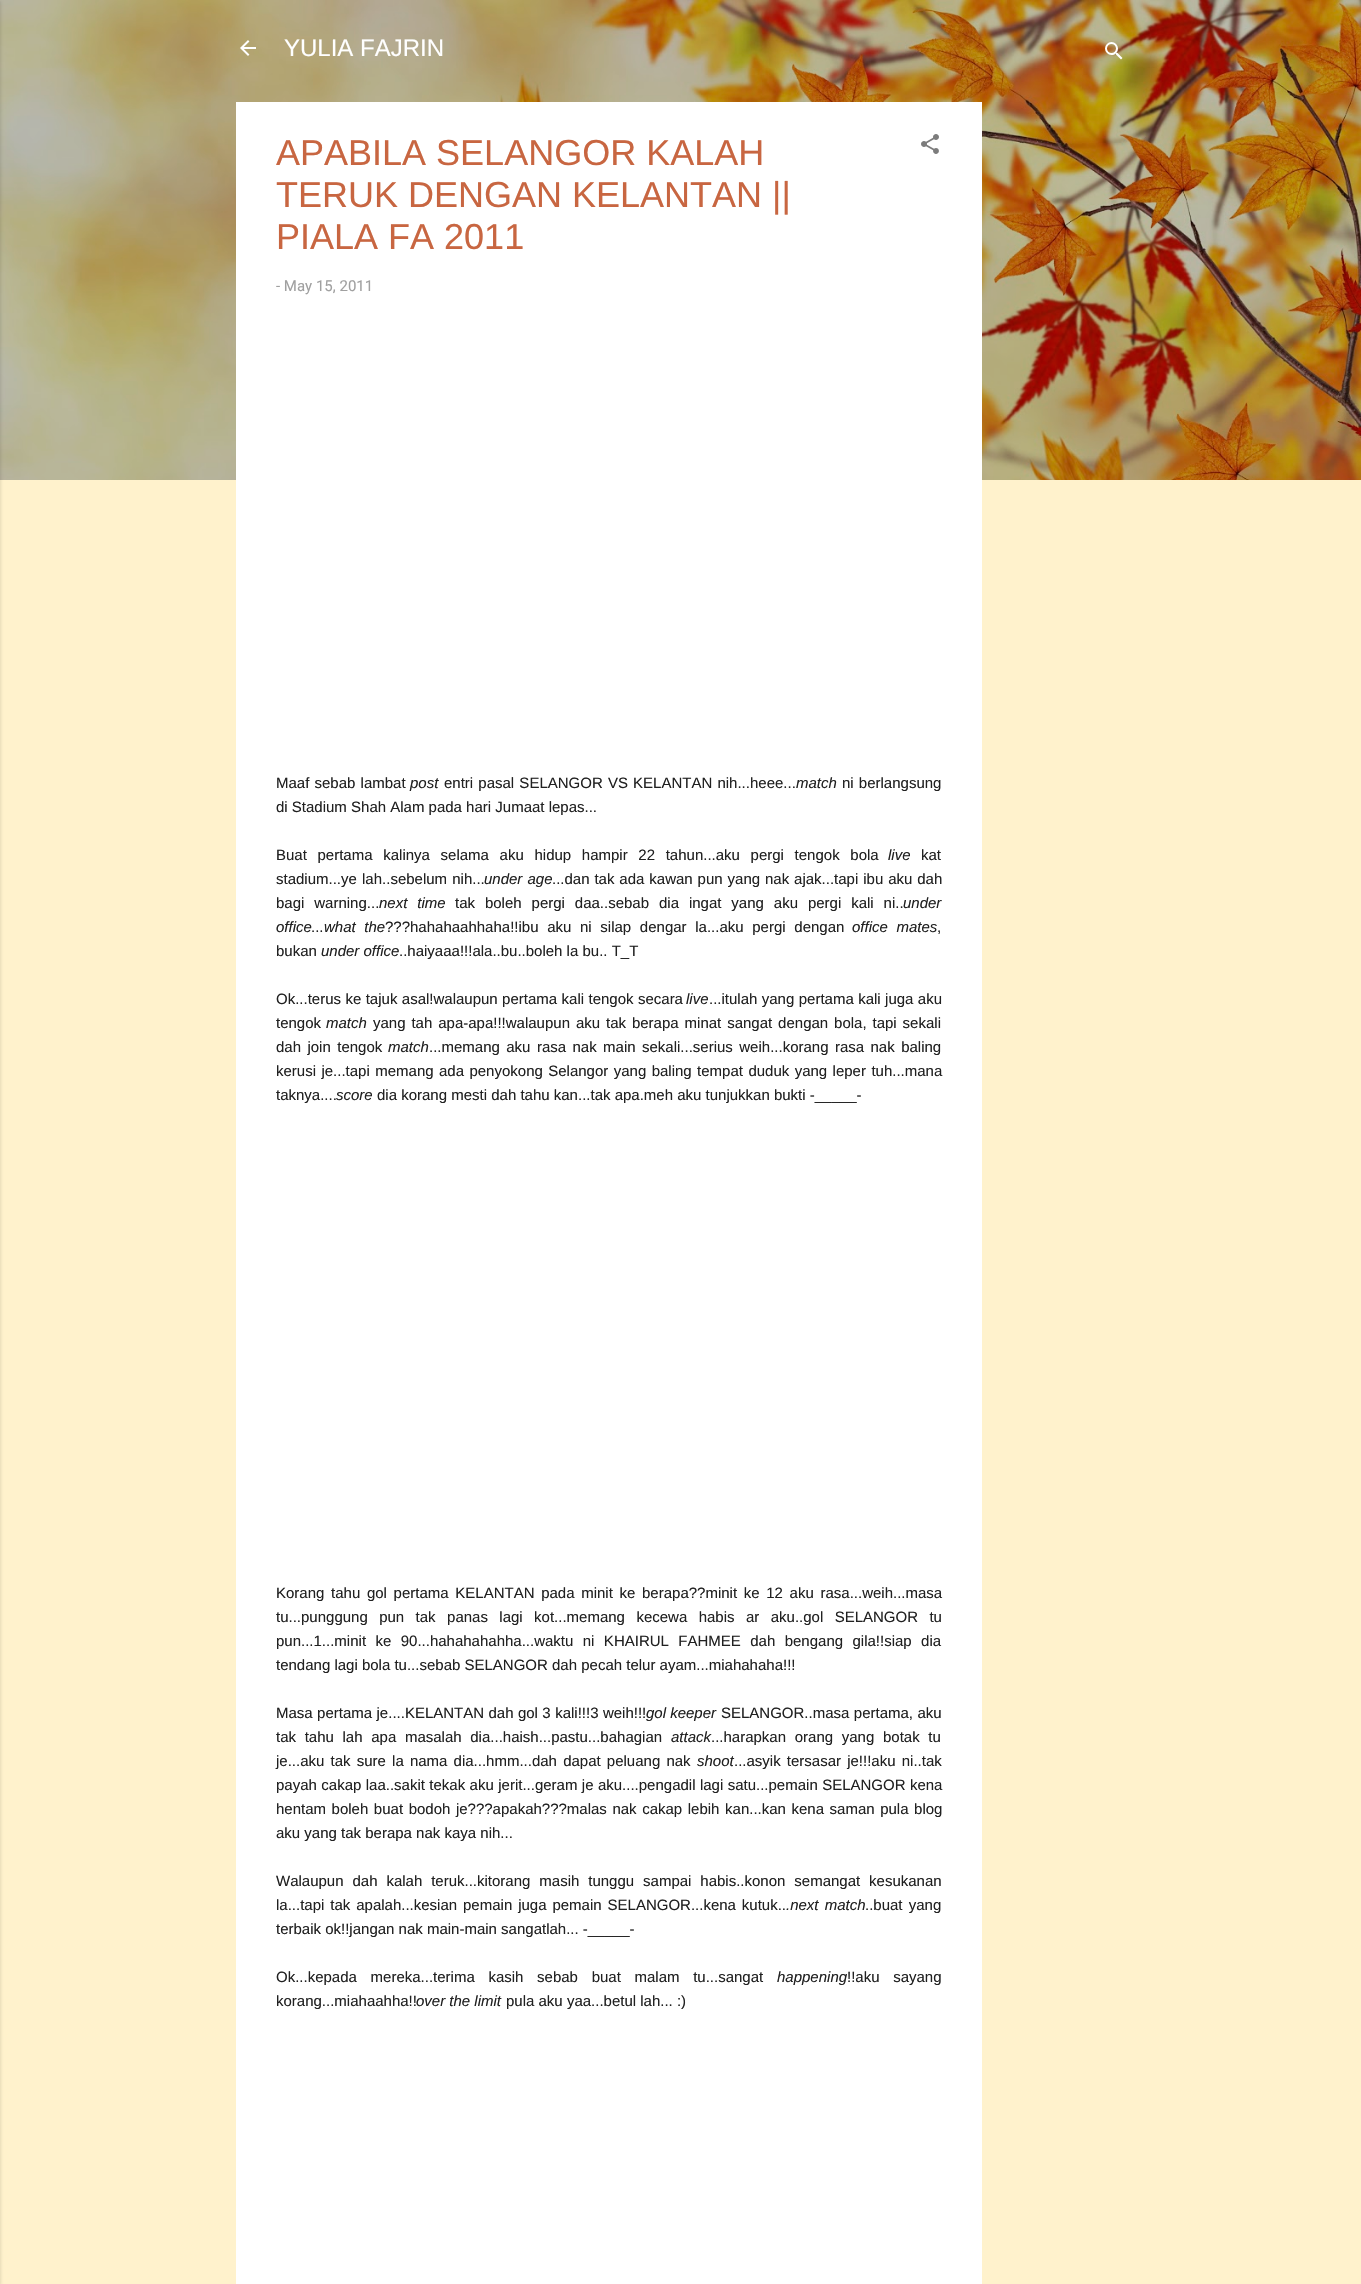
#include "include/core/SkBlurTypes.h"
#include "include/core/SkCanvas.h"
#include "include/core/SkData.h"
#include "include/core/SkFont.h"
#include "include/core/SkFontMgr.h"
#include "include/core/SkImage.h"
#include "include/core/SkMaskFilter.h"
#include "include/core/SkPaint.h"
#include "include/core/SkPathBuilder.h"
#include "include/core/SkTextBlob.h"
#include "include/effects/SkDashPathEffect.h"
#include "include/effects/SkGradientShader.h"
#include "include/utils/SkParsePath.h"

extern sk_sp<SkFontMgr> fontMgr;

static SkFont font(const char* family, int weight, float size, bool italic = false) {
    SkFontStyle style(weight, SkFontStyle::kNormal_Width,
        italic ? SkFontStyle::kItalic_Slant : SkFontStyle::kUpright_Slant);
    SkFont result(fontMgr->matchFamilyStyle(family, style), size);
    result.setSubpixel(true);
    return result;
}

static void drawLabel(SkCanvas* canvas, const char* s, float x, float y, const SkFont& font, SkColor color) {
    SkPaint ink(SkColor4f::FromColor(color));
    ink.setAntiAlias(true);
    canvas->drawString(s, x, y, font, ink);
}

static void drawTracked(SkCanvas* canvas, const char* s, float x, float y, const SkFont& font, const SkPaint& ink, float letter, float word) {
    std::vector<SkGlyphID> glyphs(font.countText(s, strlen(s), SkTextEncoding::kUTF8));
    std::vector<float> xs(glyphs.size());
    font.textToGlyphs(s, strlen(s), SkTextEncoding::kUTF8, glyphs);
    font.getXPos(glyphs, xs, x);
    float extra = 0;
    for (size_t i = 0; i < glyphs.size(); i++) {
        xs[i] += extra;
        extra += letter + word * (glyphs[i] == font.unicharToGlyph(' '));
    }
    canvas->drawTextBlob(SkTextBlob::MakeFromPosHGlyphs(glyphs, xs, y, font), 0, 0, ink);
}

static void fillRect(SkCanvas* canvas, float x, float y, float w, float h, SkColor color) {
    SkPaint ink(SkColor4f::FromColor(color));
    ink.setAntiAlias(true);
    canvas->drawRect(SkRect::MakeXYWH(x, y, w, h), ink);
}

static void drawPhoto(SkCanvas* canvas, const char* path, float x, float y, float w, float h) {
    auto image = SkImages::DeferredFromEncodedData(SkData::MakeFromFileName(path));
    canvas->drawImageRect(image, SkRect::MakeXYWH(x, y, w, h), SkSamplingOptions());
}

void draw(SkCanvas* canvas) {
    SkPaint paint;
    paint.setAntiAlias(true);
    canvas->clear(0xFFFFF2CC);
    drawPhoto(canvas, "assets/img1.png", 0, 0, 1361, 480);
    paint.setColor(0x1A000000);
    paint.setMaskFilter(SkMaskFilter::MakeBlur(kNormal_SkBlurStyle, 1.5f));
    canvas->drawRect(SkRect::MakeXYWH(-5, 1, 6, 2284), paint);
    paint.setMaskFilter(nullptr);
    drawPhoto(canvas, "assets/img2.png", 240, 40, 16, 16);
    SkFont font1 = font("Liberation Sans", 400, 24);
    drawLabel(canvas, "YULIA FAJRIN", 284, 56, font1, 0xFFFFFFFF);
    drawPhoto(canvas, "assets/img3.png", 1105, 42, 18, 18);
    fillRect(canvas, 236, 102, 746, 2182, 0xFFFFFFFF);
    SkFont font2 = font("Liberation Sans", 400, 36);
    drawLabel(canvas, "APABILA SELANGOR KALAH", 276, 165, font2, 0xFFC86641);
    drawLabel(canvas, "TERUK DENGAN KELANTAN ||", 276, 207, font2, 0xFFC86641);
    drawLabel(canvas, "PIALA FA 2011", 276, 249, font2, 0xFFC86641);
    drawPhoto(canvas, "assets/img4.png", 921, 134, 18, 20);
    SkFont font3 = font("Roboto", 400, 15);
    drawLabel(canvas, "- May 15, 2011", 276, 291, font3, 0xFFA0A0A0);
    SkFont font4 = font("Liberation Sans", 400, 15);
    paint.setColor(0xFF212121);
    drawTracked(canvas, "Maaf sebab lambat", 276, 788, font4, paint, 0, 1);
    SkFont font5 = font("Liberation Sans", 400, 15, true);
    drawLabel(canvas, "post", 410, 788, font5, 0xFF212121);
    drawTracked(canvas, "entri pasal SELANGOR VS KELANTAN nih...heee...", 444, 788, font4, paint, 0, 1);
    drawLabel(canvas, "match", 796, 788, font5, 0xFF212121);
    drawTracked(canvas, "ni berlangsung", 842, 788, font4, paint, 0, 1);
    drawLabel(canvas, "di Stadium Shah Alam pada hari Jumaat lepas...", 276, 812, font4, 0xFF212121);
    drawTracked(canvas, "Buat pertama kalinya selama aku hidup hampir 22 tahun...aku pergi tengok bola", 276, 860, font4, paint, 0, 6.5f);
    drawLabel(canvas, "live", 888, 860, font5, 0xFF212121);
    drawLabel(canvas, "kat", 921, 860, font4, 0xFF212121);
    drawTracked(canvas, "stadium...ye lah..sebelum nih...", 276, 884, font4, paint, 0, 1);
    drawTracked(canvas, "under age", 484, 884, font5, paint, 0, 1);
    drawTracked(canvas, "...dan tak ada kawan pun yang nak ajak...tapi ibu aku dah", 552, 884, font4, paint, 0, 0.75f);
    drawTracked(canvas, "bagi warning...", 276, 908, font4, paint, 0, 5.75f);
    drawTracked(canvas, "next time", 379, 908, font5, paint, 0, 5.75f);
    drawTracked(canvas, "tak boleh pergi daa..sebab dia ingat yang aku pergi kali ni..", 455, 908, font4, paint, 0, 5.75f);
    drawLabel(canvas, "under", 903, 908, font5, 0xFF212121);
    drawLabel(canvas, "office", 276, 932, font5, 0xFF212121);
    drawLabel(canvas, "...", 311, 932, font4, 0xFF212121);
    drawTracked(canvas, "what the", 324, 932, font5, paint, 0, 4.5f);
    drawTracked(canvas, "?\077?hahahaahhaha!!ibu aku ni silap dengar la...aku pergi dengan", 385, 932, font4, paint, 0, 4.5f);
    drawTracked(canvas, "office mates", 852, 932, font5, paint, 0, 4.5f);
    drawLabel(canvas, ",", 937, 932, font4, 0xFF212121);
    drawLabel(canvas, "bukan", 276, 956, font4, 0xFF212121);
    drawLabel(canvas, "under office", 321, 956, font5, 0xFF212121);
    drawLabel(canvas, "..haiyaaa!!!ala..bu..boleh la bu.. T_T", 399, 956, font4, 0xFF212121);
    drawTracked(canvas, "Ok...terus ke tajuk asal!walaupun pertama kali tengok secara", 276, 1004, font4, paint, 0, 0.25f);
    drawLabel(canvas, "live", 686, 1004, font5, 0xFF212121);
    drawTracked(canvas, "...itulah yang pertama kali juga aku", 709, 1004, font4, paint, 0, 0.25f);
    drawLabel(canvas, "tengok", 276, 1028, font4, 0xFF212121);
    drawLabel(canvas, "match", 326, 1028, font5, 0xFF212121);
    drawTracked(canvas, "yang tah apa-apa!!!walaupun aku tak berapa minat sangat dengan bola, tapi sekali", 373, 1028, font4, paint, 0, 1.75f);
    drawTracked(canvas, "dah join tengok", 276, 1052, font4, paint, 0, 2.25f);
    drawLabel(canvas, "match", 388, 1052, font5, 0xFF212121);
    drawTracked(canvas, "...memang aku rasa nak main sekali...serius weih...korang rasa nak baling", 429, 1052, font4, paint, 0, 2.25f);
    drawTracked(canvas, "kerusi je...tapi memang ada penyokong Selangor yang baling tempat duduk yang leper tuh...mana", 276, 1076, font4, paint, 0, 1.25f);
    drawLabel(canvas, "taknya....", 276, 1100, font4, 0xFF212121);
    drawLabel(canvas, "score", 336, 1100, font5, 0xFF212121);
    drawLabel(canvas, "dia korang mesti dah tahu kan...tak apa.meh aku tunjukkan bukti -_____-", 377, 1100, font4, 0xFF212121);
    drawTracked(canvas, "Korang tahu gol pertama KELANTAN pada minit ke berapa?\077minit ke 12 aku rasa...weih...masa", 276, 1598, font4, paint, 0, 2.5f);
    drawTracked(canvas, "tu...punggung pun tak panas lagi kot...memang kecewa habis ar aku..gol SELANGOR tu", 276, 1622, font4, paint, 0, 7.25f);
    drawTracked(canvas, "pun...1...minit ke 90...hahahahahha...waktu ni KHAIRUL FAHMEE dah bengang gila!!siap dia", 276, 1646, font4, paint, 0, 5.25f);
    drawLabel(canvas, "tendang lagi bola tu...sebab SELANGOR dah pecah telur ayam...miahahaha!!!", 276, 1670, font4, 0xFF212121);
    drawTracked(canvas, "Masa pertama je....KELANTAN dah gol 3 kali!!!3 weih!!!", 276, 1718, font4, paint, 0, 0.25f);
    drawLabel(canvas, "gol keeper", 646, 1718, font5, 0xFF212121);
    drawTracked(canvas, "SELANGOR..masa pertama, aku", 721, 1718, font4, paint, 0, 0.25f);
    drawTracked(canvas, "tak tahu lah apa masalah dia...haish...pastu...bahagian", 276, 1742, font4, paint, 0, 4.5f);
    drawLabel(canvas, "attack", 671, 1742, font5, 0xFF212121);
    drawTracked(canvas, "...harapkan orang yang botak tu", 711, 1742, font4, paint, 0, 4.5f);
    drawTracked(canvas, "je...aku tak sure la nama dia...hmm...dah dapat peluang nak", 276, 1766, font4, paint, 0, 2);
    drawLabel(canvas, "shoot", 697, 1766, font5, 0xFF212121);
    drawTracked(canvas, "...asyik tersasar je!!!aku ni..tak", 734, 1766, font4, paint, 0, 2);
    drawTracked(canvas, "payah cakap laa..sakit tekak aku jerit...geram je aku....pengadil lagi satu...pemain SELANGOR kena", 276, 1790, font4, paint, 0, 0.25f);
    drawTracked(canvas, "hentam boleh buat bodoh je?\077?apakah?\077?malas nak cakap lebih kan...kan kena saman pula blog", 276, 1814, font4, paint, 0, 1.4f);
    drawLabel(canvas, "aku yang tak berapa nak kaya nih...", 276, 1838, font4, 0xFF212121);
    drawTracked(canvas, "Walaupun dah kalah teruk...kitorang masih tunggu sampai habis..konon semangat kesukanan", 276, 1886, font4, paint, 0, 4.75f);
    drawTracked(canvas, "la...tapi tak apalah...kesian pemain juga pemain SELANGOR...kena kutuk..", 276, 1910, font4, paint, 0, 1.75f);
    drawTracked(canvas, ".next match", 786, 1910, font5, paint, 0, 2);
    drawTracked(canvas, "..buat yang", 865, 1910, font4, paint, 0, 2);
    drawLabel(canvas, "terbaik ok!!jangan nak main-main sangatlah... -_____-", 276, 1934, font4, 0xFF212121);
    drawTracked(canvas, "Ok...kepada mereka...terima kasih sebab buat malam tu...sangat", 276, 1982, font4, paint, 0, 9.5f);
    drawLabel(canvas, "happening", 777, 1982, font5, 0xFF212121);
    drawTracked(canvas, "!!aku sayang", 847, 1982, font4, paint, 0, 9.5f);
    drawLabel(canvas, "korang...miahaahha!!", 276, 2006, font4, 0xFF212121);
    drawLabel(canvas, "over the limit", 416, 2006, font5, 0xFF212121);
    drawLabel(canvas, "pula aku yaa...betul lah... :)", 506, 2006, font4, 0xFF212121);
}
